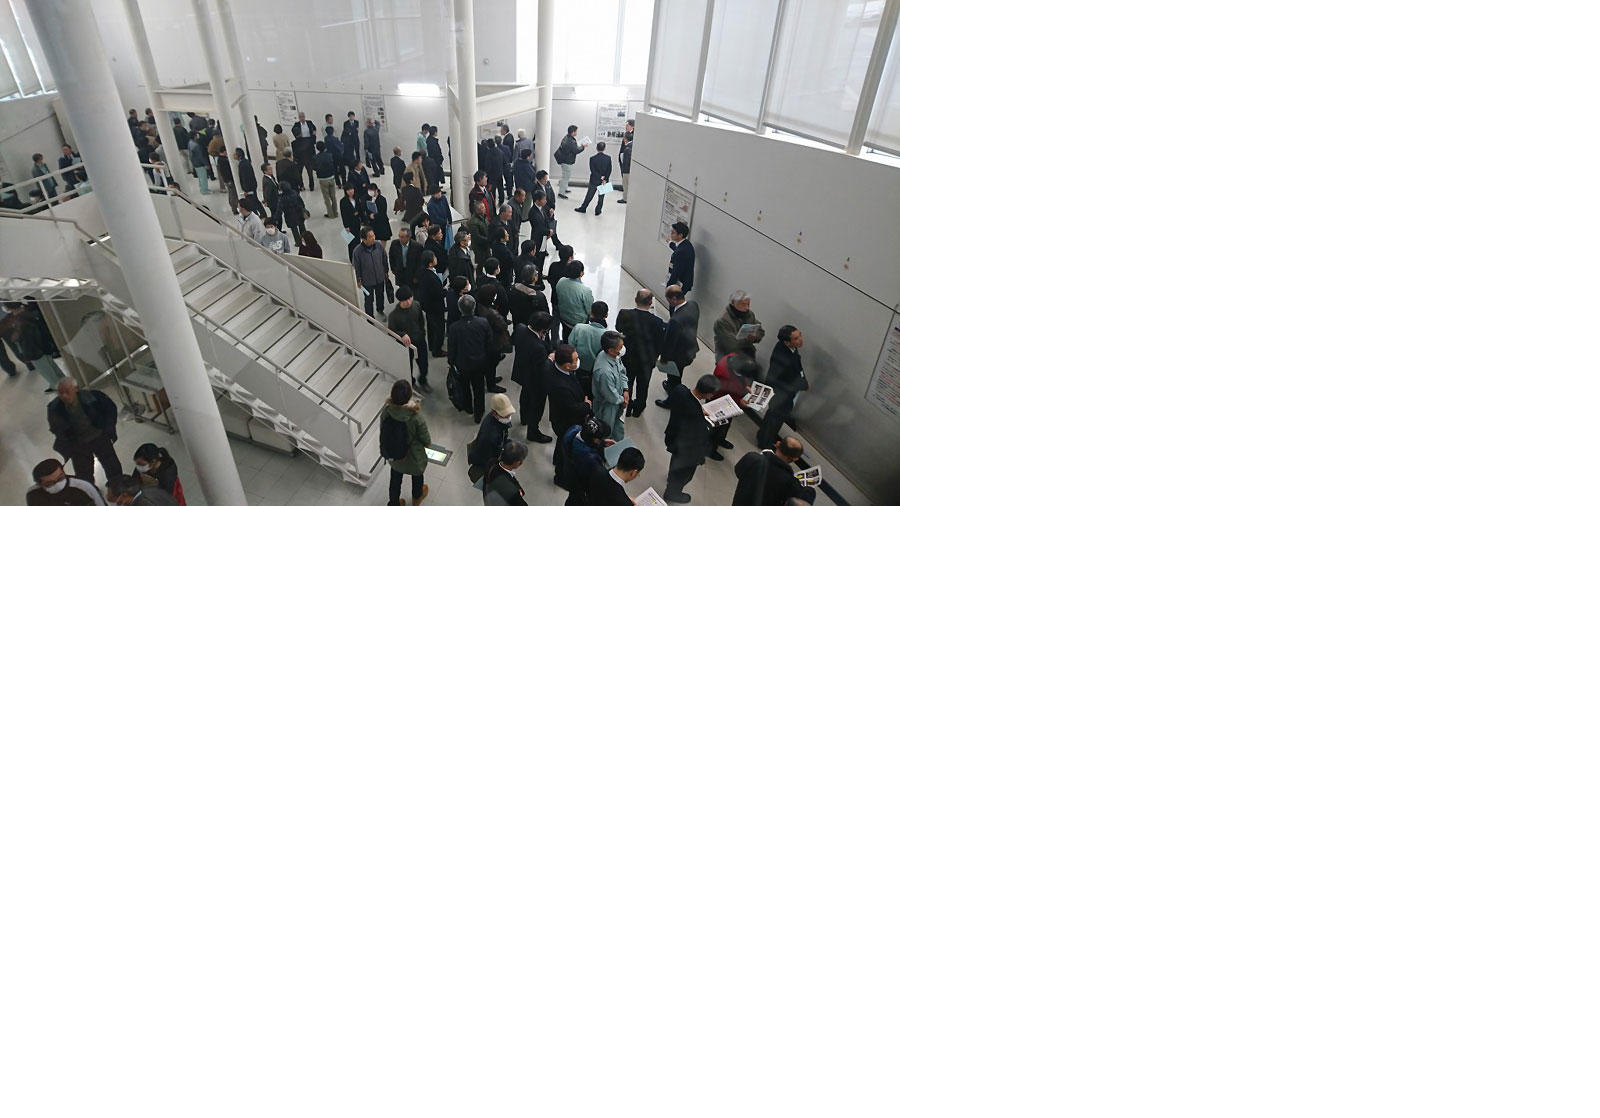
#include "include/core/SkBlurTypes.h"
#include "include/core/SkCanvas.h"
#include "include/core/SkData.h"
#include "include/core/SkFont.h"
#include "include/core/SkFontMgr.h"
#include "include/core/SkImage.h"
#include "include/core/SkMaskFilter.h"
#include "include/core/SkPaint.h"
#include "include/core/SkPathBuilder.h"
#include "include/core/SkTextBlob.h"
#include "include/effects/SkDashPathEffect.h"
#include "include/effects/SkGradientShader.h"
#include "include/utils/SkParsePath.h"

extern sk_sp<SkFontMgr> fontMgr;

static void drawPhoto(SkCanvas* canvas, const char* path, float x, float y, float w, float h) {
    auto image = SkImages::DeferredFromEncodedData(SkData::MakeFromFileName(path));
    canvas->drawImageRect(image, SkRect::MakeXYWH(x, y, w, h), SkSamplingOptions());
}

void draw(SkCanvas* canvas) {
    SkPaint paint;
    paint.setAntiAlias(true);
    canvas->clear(0xFFFFFFFF);
    drawPhoto(canvas, "assets/img1.png", 0, 0, 900, 506);
}
